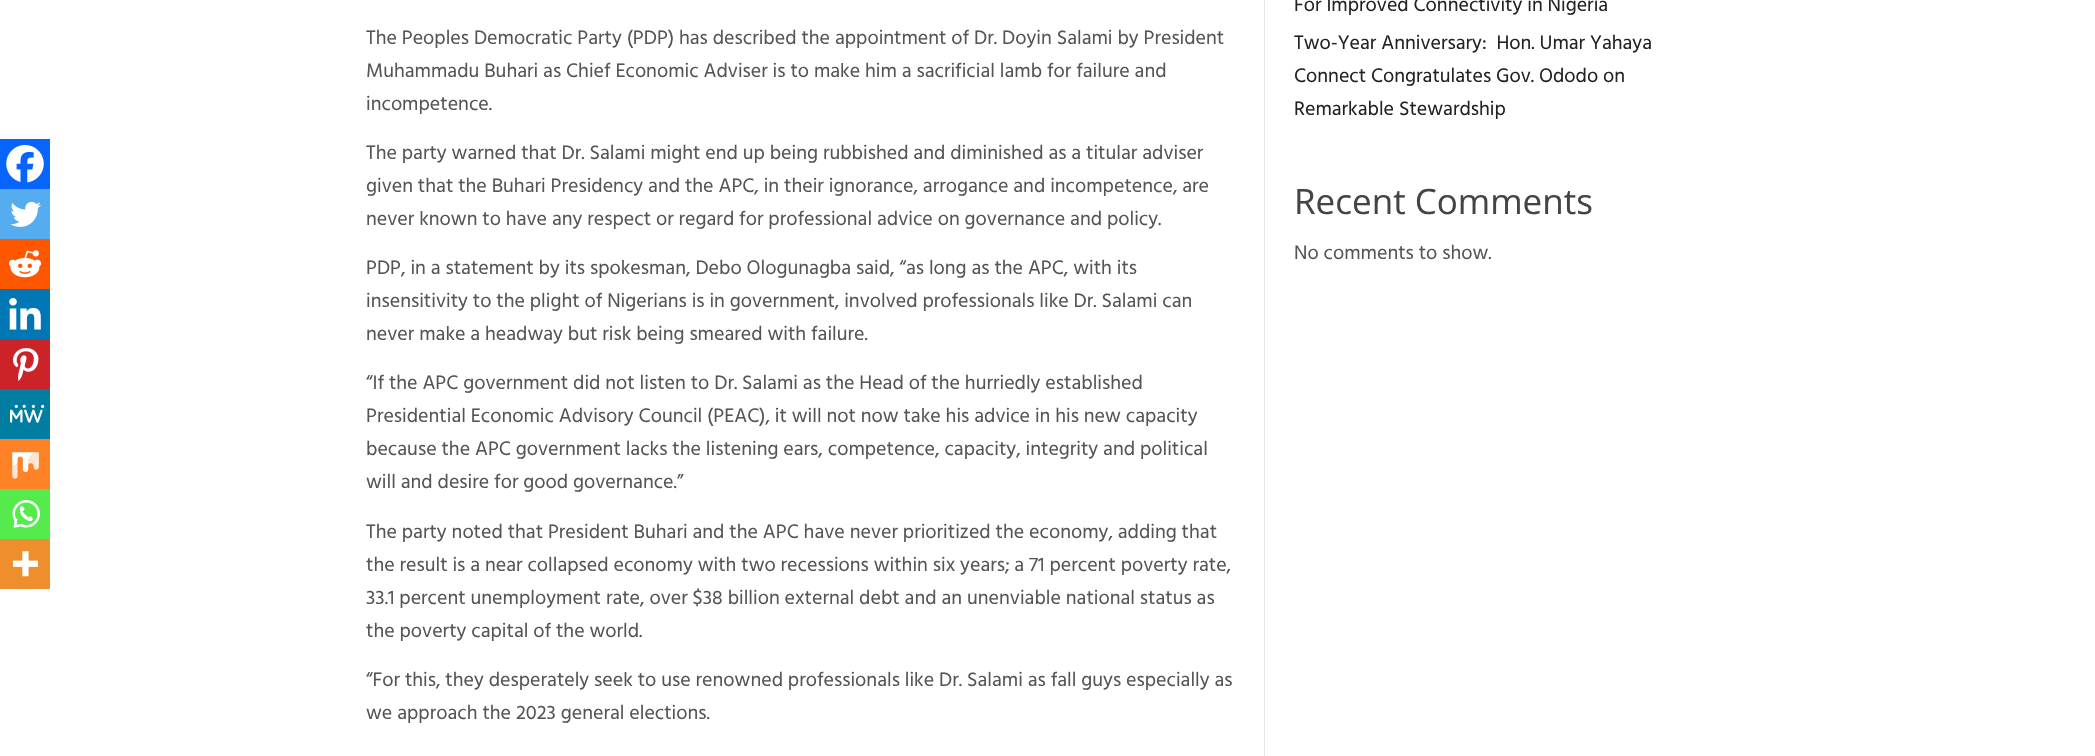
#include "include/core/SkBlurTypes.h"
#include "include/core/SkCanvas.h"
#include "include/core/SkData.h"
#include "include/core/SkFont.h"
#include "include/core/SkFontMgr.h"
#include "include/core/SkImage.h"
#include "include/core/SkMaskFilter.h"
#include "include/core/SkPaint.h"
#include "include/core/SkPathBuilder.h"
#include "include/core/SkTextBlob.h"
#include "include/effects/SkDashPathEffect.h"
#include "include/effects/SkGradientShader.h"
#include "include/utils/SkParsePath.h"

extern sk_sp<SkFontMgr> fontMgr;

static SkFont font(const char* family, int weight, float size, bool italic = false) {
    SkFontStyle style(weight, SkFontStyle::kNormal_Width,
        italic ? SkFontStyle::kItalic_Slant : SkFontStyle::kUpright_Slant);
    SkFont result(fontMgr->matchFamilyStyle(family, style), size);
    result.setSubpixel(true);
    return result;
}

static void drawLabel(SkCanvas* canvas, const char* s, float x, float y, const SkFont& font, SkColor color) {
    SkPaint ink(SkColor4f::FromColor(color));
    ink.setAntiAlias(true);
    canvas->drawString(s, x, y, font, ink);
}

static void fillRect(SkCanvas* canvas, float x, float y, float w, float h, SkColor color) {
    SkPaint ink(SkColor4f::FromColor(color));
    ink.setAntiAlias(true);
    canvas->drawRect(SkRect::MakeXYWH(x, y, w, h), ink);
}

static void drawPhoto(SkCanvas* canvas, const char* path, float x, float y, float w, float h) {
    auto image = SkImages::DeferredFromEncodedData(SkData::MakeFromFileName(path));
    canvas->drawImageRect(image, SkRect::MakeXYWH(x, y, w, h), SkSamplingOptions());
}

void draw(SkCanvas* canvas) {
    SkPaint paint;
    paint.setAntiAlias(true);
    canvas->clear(0xFFFFFFFF);
    fillRect(canvas, 1264, 0, 1, 756, 0xFFE6E6E6);
    SkFont font1 = font("Hind", 400, 20);
    drawLabel(canvas, "The Peoples Democratic Party (PDP) has described the appointment of Dr. Doyin Salami by President", 366, 44, font1, 0xFF555555);
    drawLabel(canvas, "Muhammadu Buhari as Chief Economic Adviser is to make him a sacrificial lamb for failure and", 366, 77, font1, 0xFF555555);
    drawLabel(canvas, "incompetence.", 366, 110, font1, 0xFF555555);
    fillRect(canvas, 0, 139, 50, 50, 0xFF0765FE);
    drawPhoto(canvas, "assets/img1.png", 6, 145, 38, 38);
    fillRect(canvas, 0, 189, 50, 50, 0xFF55ACEE);
    drawPhoto(canvas, "assets/img2.png", 10, 201, 31, 26);
    fillRect(canvas, 0, 239, 50, 50, 0xFFFF5700);
    drawPhoto(canvas, "assets/img3.png", 8, 250, 34, 28);
    fillRect(canvas, 0, 289, 50, 50, 0xFF0077B5);
    drawPhoto(canvas, "assets/img4.png", 9, 298, 32, 32);
    fillRect(canvas, 0, 339, 50, 50, 0xFFCC2329);
    drawPhoto(canvas, "assets/img5.png", 13, 348, 26, 33);
    fillRect(canvas, 0, 389, 50, 50, 0xFF007DA1);
    drawPhoto(canvas, "assets/img6.png", 10, 404, 35, 19);
    fillRect(canvas, 0, 439, 50, 50, 0xFFFF8226);
    drawPhoto(canvas, "assets/img7.png", 12, 452, 27, 27);
    fillRect(canvas, 0, 489, 50, 50, 0xFF55EB4C);
    drawPhoto(canvas, "assets/img8.png", 12, 500, 28, 28);
    fillRect(canvas, 0, 539, 50, 50, 0xFFEE8E2D);
    drawPhoto(canvas, "assets/img9.png", 12, 551, 26, 26);
    drawLabel(canvas, "The party warned that Dr. Salami might end up being rubbished and diminished as a titular adviser", 366, 159, font1, 0xFF555555);
    drawLabel(canvas, "given that the Buhari Presidency and the APC, in their ignorance, arrogance and incompetence, are", 366, 192, font1, 0xFF555555);
    drawLabel(canvas, "never known to have any respect or regard for professional advice on governance and policy.", 366, 225, font1, 0xFF555555);
    drawLabel(canvas, "PDP, in a statement by its spokesman, Debo Ologunagba said, “as long as the APC, with its", 366, 274, font1, 0xFF555555);
    drawLabel(canvas, "insensitivity to the plight of Nigerians is in government, involved professionals like Dr. Salami can", 366, 307, font1, 0xFF555555);
    drawLabel(canvas, "never make a headway but risk being smeared with failure.", 366, 340, font1, 0xFF555555);
    drawLabel(canvas, "“If the APC government did not listen to Dr. Salami as the Head of the hurriedly established", 366, 389, font1, 0xFF555555);
    drawLabel(canvas, "Presidential Economic Advisory Council (PEAC), it will not now take his advice in his new capacity", 366, 422, font1, 0xFF555555);
    drawLabel(canvas, "because the APC government lacks the listening ears, competence, capacity, integrity and political", 366, 455, font1, 0xFF555555);
    drawLabel(canvas, "will and desire for good governance.”", 366, 488, font1, 0xFF555555);
    drawLabel(canvas, "The party noted that President Buhari and the APC have never prioritized the economy, adding that", 366, 538, font1, 0xFF555555);
    drawLabel(canvas, "the result is a near collapsed economy with two recessions within six years; a 71 percent poverty rate,", 366, 571, font1, 0xFF555555);
    drawLabel(canvas, "33.1 percent unemployment rate, over $38 billion external debt and an unenviable national status as", 366, 604, font1, 0xFF555555);
    drawLabel(canvas, "the poverty capital of the world.", 366, 637, font1, 0xFF555555);
    drawLabel(canvas, "“For this, they desperately seek to use renowned professionals like Dr. Salami as fall guys especially as", 366, 686, font1, 0xFF555555);
    drawLabel(canvas, "we approach the 2023 general elections.", 366, 719, font1, 0xFF555555);
    drawLabel(canvas, "For Improved Connectivity in Nigeria", 1294, 11, font1, 0xFF222222);
    drawLabel(canvas, "Two-Year Anniversary:  Hon. Umar Yahaya", 1294, 49, font1, 0xFF222222);
    drawLabel(canvas, "Connect Congratulates Gov. Ododo on", 1294, 82, font1, 0xFF222222);
    drawLabel(canvas, "Remarkable Stewardship", 1294, 115, font1, 0xFF222222);
    SkFont font2 = font("Open Sans", 400, 35);
    drawLabel(canvas, "Recent Comments", 1294, 214, font2, 0xFF444444);
    drawLabel(canvas, "No comments to show.", 1294, 259, font1, 0xFF555555);
}
